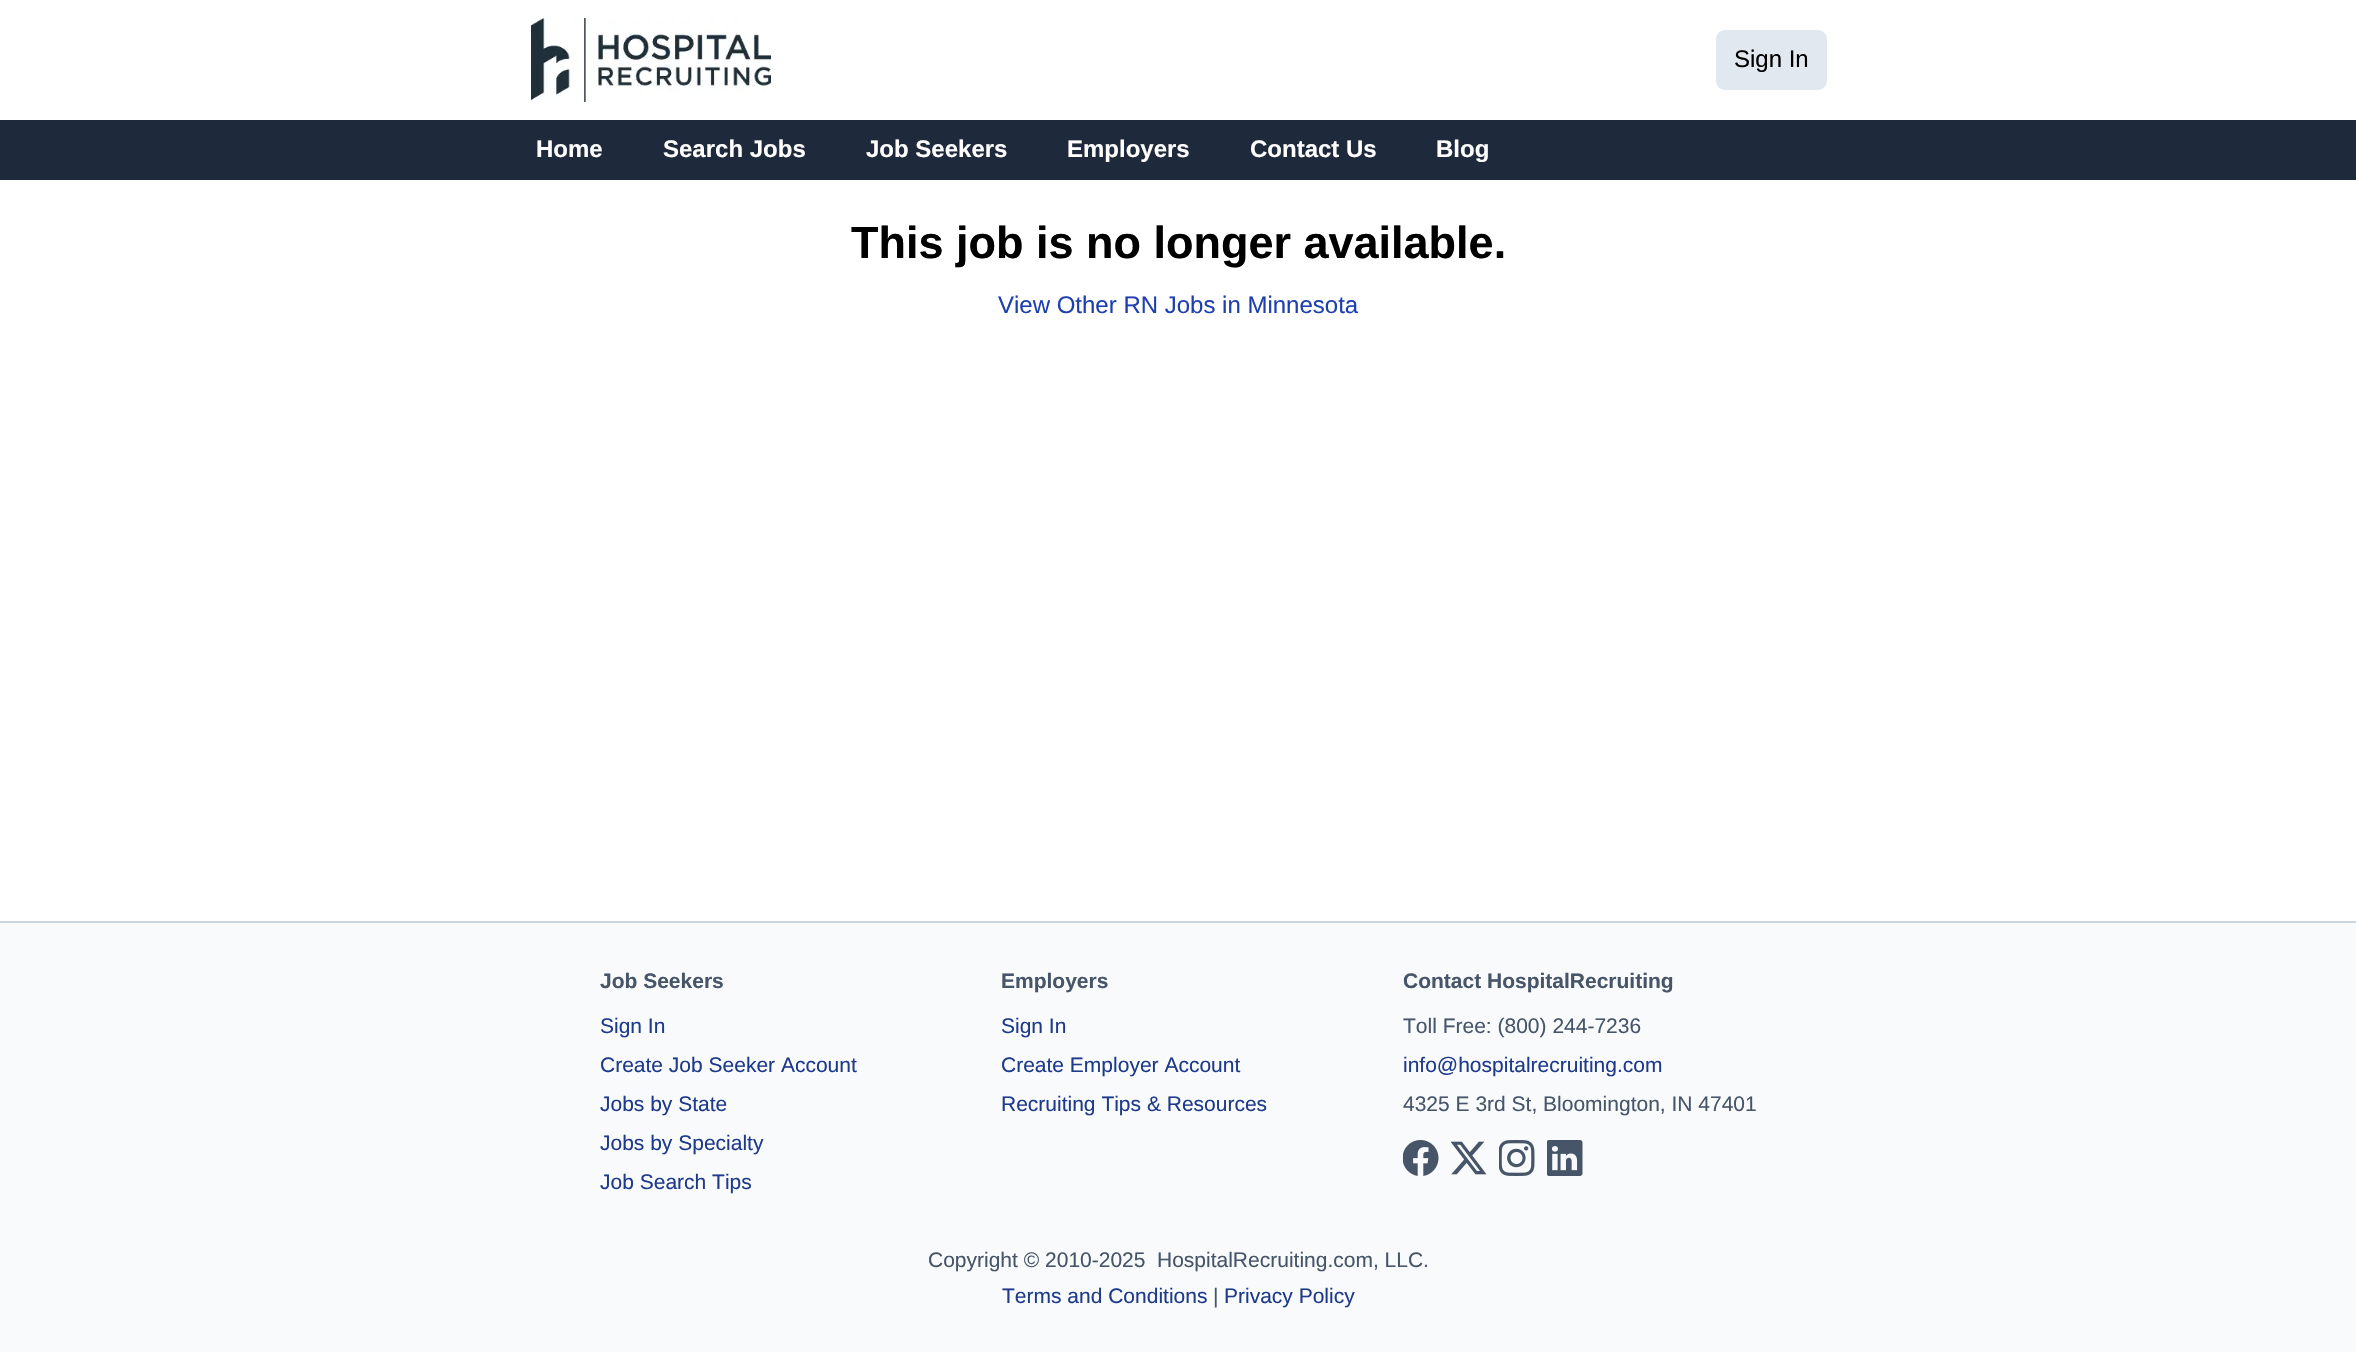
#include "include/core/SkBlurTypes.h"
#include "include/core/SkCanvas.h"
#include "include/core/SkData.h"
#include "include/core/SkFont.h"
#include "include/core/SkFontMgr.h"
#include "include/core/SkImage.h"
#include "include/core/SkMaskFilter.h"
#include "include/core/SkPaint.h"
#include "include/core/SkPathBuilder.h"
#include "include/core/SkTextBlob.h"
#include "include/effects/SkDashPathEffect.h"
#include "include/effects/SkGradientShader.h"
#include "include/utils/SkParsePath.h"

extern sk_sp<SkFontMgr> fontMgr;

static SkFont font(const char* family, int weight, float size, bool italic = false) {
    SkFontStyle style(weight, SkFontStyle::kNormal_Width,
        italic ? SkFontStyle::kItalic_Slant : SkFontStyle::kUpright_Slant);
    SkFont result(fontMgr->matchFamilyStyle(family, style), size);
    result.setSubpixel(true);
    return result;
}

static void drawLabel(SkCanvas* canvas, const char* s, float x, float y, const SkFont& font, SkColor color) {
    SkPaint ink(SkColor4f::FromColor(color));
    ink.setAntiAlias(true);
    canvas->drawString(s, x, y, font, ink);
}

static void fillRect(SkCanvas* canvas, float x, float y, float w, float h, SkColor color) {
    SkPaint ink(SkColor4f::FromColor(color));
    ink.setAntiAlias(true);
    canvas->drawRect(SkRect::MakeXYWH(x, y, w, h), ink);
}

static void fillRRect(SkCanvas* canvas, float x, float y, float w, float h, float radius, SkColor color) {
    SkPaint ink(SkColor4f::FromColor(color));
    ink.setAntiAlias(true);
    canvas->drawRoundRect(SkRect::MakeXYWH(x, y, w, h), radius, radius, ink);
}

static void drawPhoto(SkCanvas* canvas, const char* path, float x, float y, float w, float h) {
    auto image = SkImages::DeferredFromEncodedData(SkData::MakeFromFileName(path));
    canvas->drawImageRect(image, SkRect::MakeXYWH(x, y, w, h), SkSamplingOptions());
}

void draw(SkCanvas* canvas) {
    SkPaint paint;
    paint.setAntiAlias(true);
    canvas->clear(0xFFFFFFFF);
    drawPhoto(canvas, "assets/img1.png", 531, 18, 240, 84);
    fillRRect(canvas, 1716, 30, 111, 60, 9, 0xFFE2E8F0);
    SkFont font1 = font("Liberation Sans", 400, 24);
    drawLabel(canvas, "Sign In", 1734, 67, font1, 0xFF000000);
    fillRect(canvas, 0, 120, 2356, 60, 0xFF1E293B);
    SkFont font2 = font("Liberation Sans", 700, 24);
    drawLabel(canvas, "Home", 536, 157, font2, 0xFFFFFFFF);
    drawLabel(canvas, "Search Jobs", 663, 157, font2, 0xFFFFFFFF);
    drawLabel(canvas, "Job Seekers", 866, 157, font2, 0xFFFFFFFF);
    drawLabel(canvas, "Employers", 1067, 157, font2, 0xFFFFFFFF);
    drawLabel(canvas, "Contact Us", 1250, 157, font2, 0xFFFFFFFF);
    drawLabel(canvas, "Blog", 1436, 157, font2, 0xFFFFFFFF);
    SkFont font3 = font("Liberation Sans", 700, 45);
    drawLabel(canvas, "This job is no longer available.", 851, 258, font3, 0xFF000000);
    drawLabel(canvas, "View Other RN Jobs in Minnesota", 998, 313, font1, 0xFF1E40AF);
    fillRect(canvas, 0, 923, 2356, 429, 0xFFF8FAFC);
    fillRect(canvas, 0, 921, 2356, 2, 0xFFCBD5E1);
    SkFont font4 = font("Liberation Sans", 700, 21);
    drawLabel(canvas, "Job Seekers", 600, 988, font4, 0xFF475569);
    SkFont font5 = font("Liberation Sans", 400, 21);
    drawLabel(canvas, "Sign In", 600, 1033, font5, 0xFF1E3A8A);
    drawLabel(canvas, "Create Job Seeker Account", 600, 1072, font5, 0xFF1E3A8A);
    drawLabel(canvas, "Jobs by State", 600, 1111, font5, 0xFF1E3A8A);
    drawLabel(canvas, "Jobs by Specialty", 600, 1150, font5, 0xFF1E3A8A);
    drawLabel(canvas, "Job Search Tips", 600, 1189, font5, 0xFF1E3A8A);
    drawLabel(canvas, "Employers", 1001, 988, font4, 0xFF475569);
    drawLabel(canvas, "Sign In", 1001, 1033, font5, 0xFF1E3A8A);
    drawLabel(canvas, "Create Employer Account", 1001, 1072, font5, 0xFF1E3A8A);
    drawLabel(canvas, "Recruiting Tips & Resources", 1001, 1111, font5, 0xFF1E3A8A);
    drawLabel(canvas, "Contact HospitalRecruiting", 1403, 988, font4, 0xFF475569);
    drawLabel(canvas, "Toll Free: (800) 244-7236", 1403, 1033, font5, 0xFF475569);
    drawLabel(canvas, "info@hospitalrecruiting.com", 1403, 1072, font5, 0xFF1E3A8A);
    drawLabel(canvas, "4325 E 3rd St, Bloomington, IN 47401", 1403, 1111, font5, 0xFF475569);
    drawPhoto(canvas, "assets/img2.png", 1403, 1140, 36, 36);
    drawPhoto(canvas, "assets/img3.png", 1451, 1141, 36, 34);
    drawPhoto(canvas, "assets/img4.png", 1499, 1140, 36, 36);
    drawPhoto(canvas, "assets/img5.png", 1547, 1140, 36, 36);
    drawLabel(canvas, "Copyright © 2010-2025", 928, 1267, font5, 0xFF475569);
    drawLabel(canvas, "HospitalRecruiting.com, LLC.", 1157, 1267, font5, 0xFF475569);
    drawLabel(canvas, "Terms and Conditions", 1002, 1303, font5, 0xFF1E3A8A);
    drawLabel(canvas, "|", 1213, 1303, font5, 0xFF475569);
    drawLabel(canvas, "Privacy Policy", 1224, 1303, font5, 0xFF1E3A8A);
}
